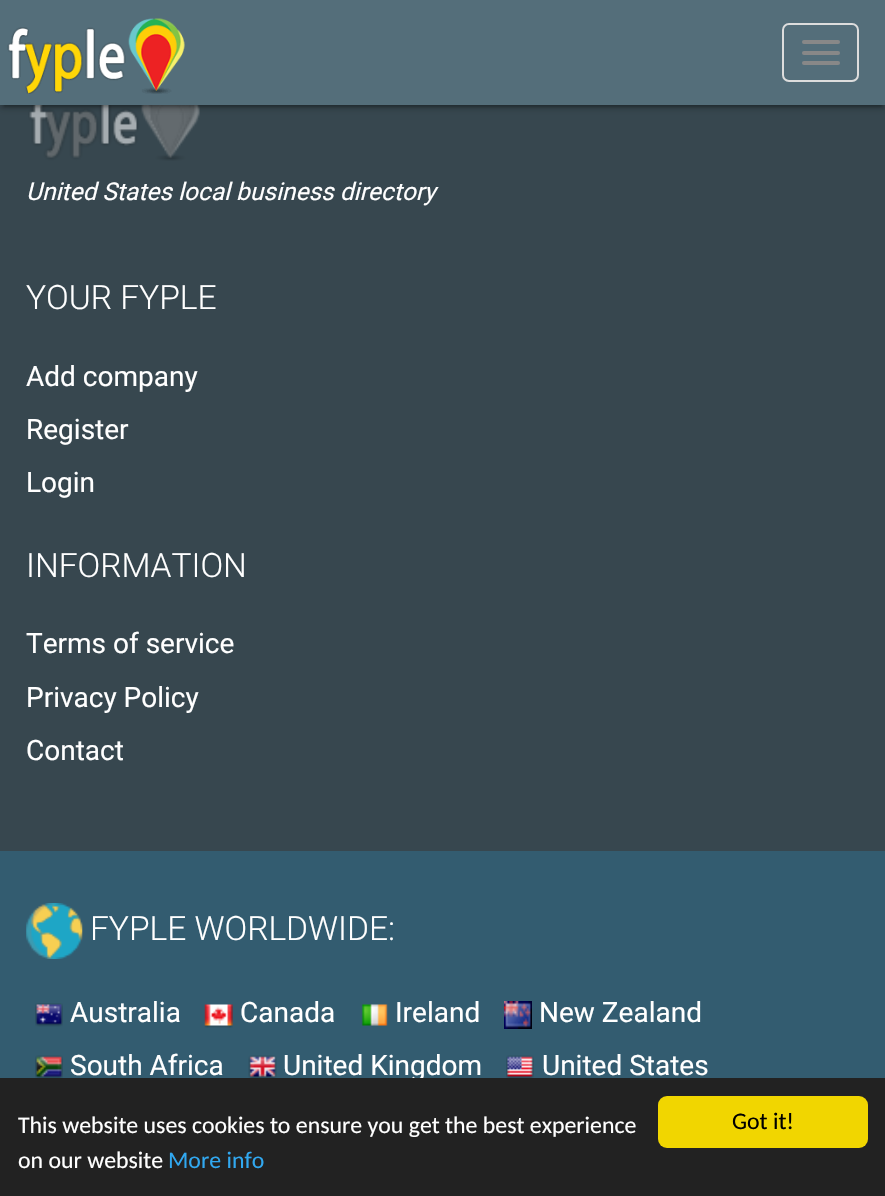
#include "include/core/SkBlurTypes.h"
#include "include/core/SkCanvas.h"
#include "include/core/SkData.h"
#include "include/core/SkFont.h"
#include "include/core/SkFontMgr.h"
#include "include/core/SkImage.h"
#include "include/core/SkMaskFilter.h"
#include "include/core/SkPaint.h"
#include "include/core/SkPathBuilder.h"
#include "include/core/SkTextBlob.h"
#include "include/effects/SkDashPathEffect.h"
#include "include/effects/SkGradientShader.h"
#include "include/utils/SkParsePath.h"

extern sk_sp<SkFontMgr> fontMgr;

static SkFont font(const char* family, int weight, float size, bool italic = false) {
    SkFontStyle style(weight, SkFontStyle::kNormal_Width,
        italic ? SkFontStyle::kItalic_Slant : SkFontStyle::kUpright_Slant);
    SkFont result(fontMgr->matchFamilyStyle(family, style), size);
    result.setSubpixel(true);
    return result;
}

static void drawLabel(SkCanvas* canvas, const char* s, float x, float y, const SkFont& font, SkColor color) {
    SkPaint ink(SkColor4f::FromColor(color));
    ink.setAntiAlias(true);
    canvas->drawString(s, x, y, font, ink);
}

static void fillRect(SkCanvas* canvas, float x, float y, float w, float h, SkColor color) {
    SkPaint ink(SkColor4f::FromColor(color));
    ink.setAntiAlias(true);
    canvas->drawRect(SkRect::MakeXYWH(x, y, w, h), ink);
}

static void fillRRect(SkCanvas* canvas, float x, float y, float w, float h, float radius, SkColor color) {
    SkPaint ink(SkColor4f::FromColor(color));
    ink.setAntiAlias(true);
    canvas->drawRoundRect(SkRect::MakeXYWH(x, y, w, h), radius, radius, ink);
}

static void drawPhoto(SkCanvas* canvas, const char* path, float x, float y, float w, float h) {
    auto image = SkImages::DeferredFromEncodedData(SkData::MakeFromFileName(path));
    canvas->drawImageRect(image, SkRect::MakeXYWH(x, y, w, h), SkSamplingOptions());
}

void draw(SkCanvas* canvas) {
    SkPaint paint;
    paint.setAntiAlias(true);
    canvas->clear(0xFF37474F);
    drawPhoto(canvas, "assets/img2.png", 28, 105, 172, 56);
    paint.setColor(0x1F000000);
    paint.setMaskFilter(SkMaskFilter::MakeBlur(kNormal_SkBlurStyle, 4.5f));
    canvas->drawRect(SkRect::MakeXYWH(0, 2, 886, 105), paint);
    paint.setMaskFilter(nullptr);
    paint.setColor(0x33000000);
    paint.setMaskFilter(SkMaskFilter::MakeBlur(kNormal_SkBlurStyle, 1));
    canvas->drawRect(SkRect::MakeXYWH(4, 9, 878, 98), paint);
    paint.setMaskFilter(nullptr);
    paint.setColor(0x24000000);
    paint.setMaskFilter(SkMaskFilter::MakeBlur(kNormal_SkBlurStyle, 2));
    canvas->drawRect(SkRect::MakeXYWH(0, 4, 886, 105), paint);
    paint.setMaskFilter(nullptr);
    fillRect(canvas, 0, 0, 885, 105, 0xFF546E7A);
    drawPhoto(canvas, "assets/img1.png", 7, 18, 178, 76);
    paint.setStroke(true);
    paint.setStrokeWidth(2);
    paint.setColor(0xFFDDDDDD);
    canvas->drawRoundRect(SkRect::MakeXYWH(783, 24, 75, 57), 6, 6, paint);
    fillRRect(canvas, 802, 40, 38, 4, 2, 0xFF888888);
    fillRRect(canvas, 802, 51, 38, 4, 2, 0xFF888888);
    fillRRect(canvas, 802, 61, 38, 4, 2, 0xFF888888);
    SkFont font1 = font("Roboto", 400, 24.5f, true);
    drawLabel(canvas, "United States local business directory", 26, 200, font1, 0xFFFFFFFF);
    SkFont font2 = font("Roboto", 300, 33.5f);
    drawLabel(canvas, "YOUR FYPLE", 26, 309, font2, 0xFFFFFFFF);
    SkFont font3 = font("Roboto", 400, 28);
    drawLabel(canvas, "Add company", 26, 386, font3, 0xFFFFFFFF);
    drawLabel(canvas, "Register", 26, 439, font3, 0xFFFFFFFF);
    drawLabel(canvas, "Login", 26, 492, font3, 0xFFFFFFFF);
    drawLabel(canvas, "INFORMATION", 26, 577, font2, 0xFFFFFFFF);
    drawLabel(canvas, "Terms of service", 26, 653, font3, 0xFFFFFFFF);
    drawLabel(canvas, "Privacy Policy", 26, 707, font3, 0xFFFFFFFF);
    drawLabel(canvas, "Contact", 26, 760, font3, 0xFFFFFFFF);
    fillRect(canvas, 0, 851, 885, 227, 0xFF335C70);
    drawPhoto(canvas, "assets/img3.png", 26, 903, 57, 56);
    drawLabel(canvas, "FYPLE WORLDWIDE:", 90, 940, font2, 0xFFFFFFFF);
    drawPhoto(canvas, "assets/img4.png", 35, 1003, 28, 24);
    drawLabel(canvas, "Australia", 70, 1022, font3, 0xFFFFFFFF);
    drawPhoto(canvas, "assets/img5.png", 204, 1004, 29, 24);
    drawLabel(canvas, "Canada", 240, 1022, font3, 0xFFFFFFFF);
    drawPhoto(canvas, "assets/img6.png", 361, 1004, 27, 22);
    drawLabel(canvas, "Ireland", 395, 1022, font3, 0xFFFFFFFF);
    drawPhoto(canvas, "assets/img7.png", 504, 1001, 28, 28);
    drawLabel(canvas, "New Zealand", 539, 1022, font3, 0xFFFFFFFF);
    drawPhoto(canvas, "assets/img8.png", 35, 1055, 28, 23);
    drawLabel(canvas, "South Africa", 70, 1075, font3, 0xFFFFFFFF);
    drawPhoto(canvas, "assets/img9.png", 248, 1055, 29, 23);
    drawLabel(canvas, "United Kingdom", 283, 1075, font3, 0xFFFFFFFF);
    drawPhoto(canvas, "assets/img10.png", 506, 1055, 28, 23);
    drawLabel(canvas, "United States", 542, 1075, font3, 0xFFFFFFFF);
    fillRect(canvas, 0, 1078, 885, 118, 0xFF222222);
    SkFont font4 = font("Carlito", 400, 23.8f);
    drawLabel(canvas, "This website uses cookies to ensure you get the best experience", 18, 1133, font4, 0xFFFFFFFF);
    drawLabel(canvas, "on our website", 18, 1168, font4, 0xFFFFFFFF);
    drawLabel(canvas, "More info", 168, 1168, font4, 0xFF31A8F0);
    fillRRect(canvas, 658, 1096, 210, 52, 9, 0xFFF1D600);
    drawLabel(canvas, "Got it!", 732, 1129, font4, 0xFF000000);
}
